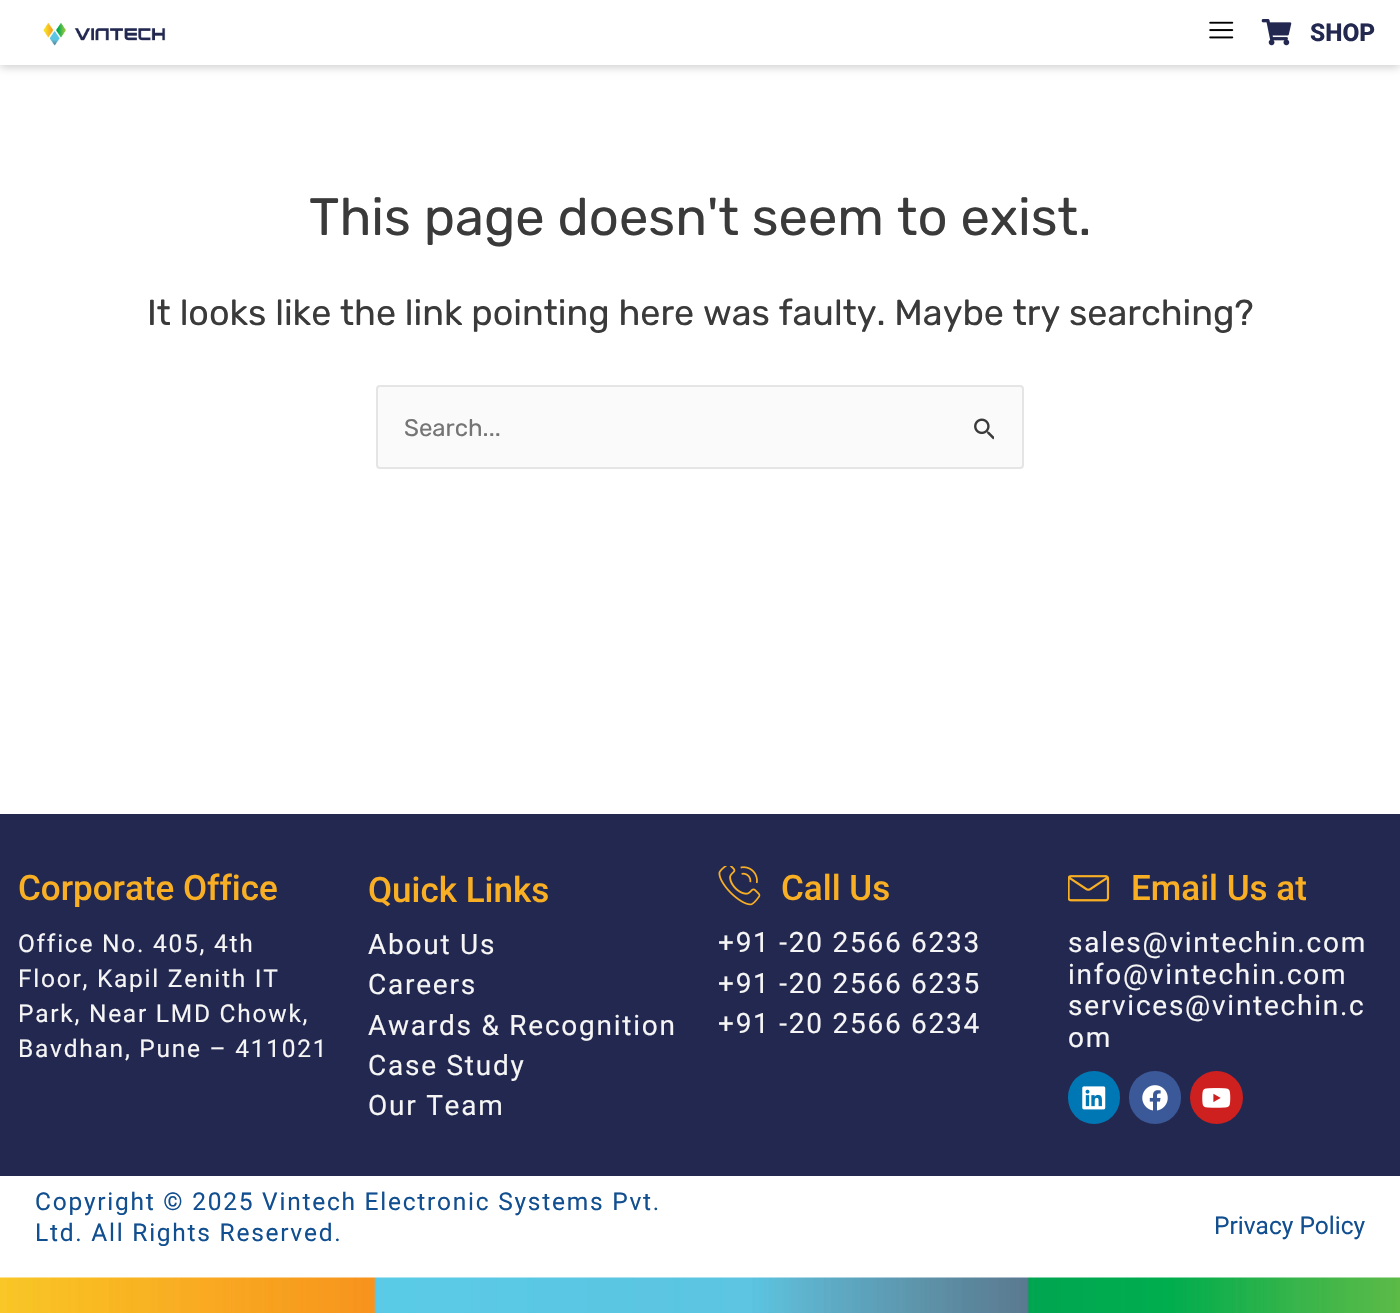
#include "include/core/SkBlurTypes.h"
#include "include/core/SkCanvas.h"
#include "include/core/SkData.h"
#include "include/core/SkFont.h"
#include "include/core/SkFontMgr.h"
#include "include/core/SkImage.h"
#include "include/core/SkMaskFilter.h"
#include "include/core/SkPaint.h"
#include "include/core/SkPathBuilder.h"
#include "include/core/SkTextBlob.h"
#include "include/effects/SkDashPathEffect.h"
#include "include/effects/SkGradientShader.h"
#include "include/utils/SkParsePath.h"

extern sk_sp<SkFontMgr> fontMgr;

static SkFont font(const char* family, int weight, float size, bool italic = false) {
    SkFontStyle style(weight, SkFontStyle::kNormal_Width,
        italic ? SkFontStyle::kItalic_Slant : SkFontStyle::kUpright_Slant);
    SkFont result(fontMgr->matchFamilyStyle(family, style), size);
    result.setSubpixel(true);
    return result;
}

static void drawLabel(SkCanvas* canvas, const char* s, float x, float y, const SkFont& font, SkColor color) {
    SkPaint ink(SkColor4f::FromColor(color));
    ink.setAntiAlias(true);
    canvas->drawString(s, x, y, font, ink);
}

static void drawTracked(SkCanvas* canvas, const char* s, float x, float y, const SkFont& font, const SkPaint& ink, float letter, float word) {
    std::vector<SkGlyphID> glyphs(font.countText(s, strlen(s), SkTextEncoding::kUTF8));
    std::vector<float> xs(glyphs.size());
    font.textToGlyphs(s, strlen(s), SkTextEncoding::kUTF8, glyphs);
    font.getXPos(glyphs, xs, x);
    float extra = 0;
    for (size_t i = 0; i < glyphs.size(); i++) {
        xs[i] += extra;
        extra += letter + word * (glyphs[i] == font.unicharToGlyph(' '));
    }
    canvas->drawTextBlob(SkTextBlob::MakeFromPosHGlyphs(glyphs, xs, y, font), 0, 0, ink);
}

static void fillRect(SkCanvas* canvas, float x, float y, float w, float h, SkColor color) {
    SkPaint ink(SkColor4f::FromColor(color));
    ink.setAntiAlias(true);
    canvas->drawRect(SkRect::MakeXYWH(x, y, w, h), ink);
}

static void fillRRect(SkCanvas* canvas, float x, float y, float w, float h, float radius, SkColor color) {
    SkPaint ink(SkColor4f::FromColor(color));
    ink.setAntiAlias(true);
    canvas->drawRoundRect(SkRect::MakeXYWH(x, y, w, h), radius, radius, ink);
}

static void drawPhoto(SkCanvas* canvas, const char* path, float x, float y, float w, float h) {
    auto image = SkImages::DeferredFromEncodedData(SkData::MakeFromFileName(path));
    canvas->drawImageRect(image, SkRect::MakeXYWH(x, y, w, h), SkSamplingOptions());
}

void draw(SkCanvas* canvas) {
    SkPaint paint;
    paint.setAntiAlias(true);
    canvas->clear(0xFFFFFFFF);
    paint.setColor(0x33000000);
    paint.setMaskFilter(SkMaskFilter::MakeBlur(kNormal_SkBlurStyle, 4.5f));
    canvas->drawRect(SkRect::MakeXYWH(0, 2, 1400, 65), paint);
    paint.setMaskFilter(nullptr);
    fillRect(canvas, 0, 0, 1400, 65, 0xFFFFFFFF);
    drawPhoto(canvas, "assets/img1.png", 43, 22, 123, 24);
    drawPhoto(canvas, "assets/img2.png", 1209, 21, 25, 18);
    drawPhoto(canvas, "assets/img3.png", 1261, 19, 31, 27);
    SkFont font1 = font("Roboto", 800, 24.5f);
    drawLabel(canvas, "SHOP", 1310, 41, font1, 0xFF232850);
    SkFont font2 = font("Rubik", 400, 52.5f);
    drawLabel(canvas, "This page doesn't seem to exist.", 309, 235, font2, 0xFF3A3A3A);
    SkFont font3 = font("Rubik", 400, 35.9f);
    drawLabel(canvas, "It looks like the link pointing here was faulty. Maybe try searching?", 147, 325, font3, 0xFF3A3A3A);
    paint.setColor(0xFFFAFAFA);
    canvas->drawRoundRect(SkRect::MakeXYWH(377, 386, 646, 82), 3, 3, paint);
    paint.setStroke(true);
    paint.setStrokeWidth(2);
    paint.setColor(0xFFE5E5E5);
    canvas->drawRoundRect(SkRect::MakeXYWH(377, 386, 646, 82), 3, 3, paint);
    SkFont font4 = font("Rubik", 400, 24);
    drawLabel(canvas, "Search...", 404, 436, font4, 0xFF757575);
    drawPhoto(canvas, "assets/img4.png", 974, 418, 20, 22);
    fillRect(canvas, 0, 814, 1400, 362, 0xFF232850);
    SkFont font5 = font("Roboto", 500, 35);
    drawLabel(canvas, "Corporate Office", 18, 900, font5, 0xFFF9AF24);
    SkFont font6 = font("Roboto", 400, 24.5f);
    paint.setStroke(false);
    paint.setColor(0xFFF5F5F5);
    drawTracked(canvas, "Office No. 405, 4th", 18, 952, font6, paint, 1.75f, 0);
    drawTracked(canvas, "Floor, Kapil Zenith IT", 18, 987, font6, paint, 1.75f, 0);
    drawTracked(canvas, "Park, Near LMD Chowk,", 18, 1022, font6, paint, 1.75f, 0);
    drawTracked(canvas, "Bavdhan, Pune – 411021", 18, 1057, font6, paint, 1.75f, 0);
    drawLabel(canvas, "Quick Links", 368, 902, font5, 0xFFF9AF24);
    SkFont font7 = font("Roboto", 400, 28);
    drawTracked(canvas, "About Us", 368, 954, font7, paint, 1.75f, 0);
    drawTracked(canvas, "Careers", 368, 994, font7, paint, 1.75f, 0);
    drawTracked(canvas, "Awards & Recognition", 368, 1035, font7, paint, 1.75f, 0);
    drawTracked(canvas, "Case Study", 368, 1075, font7, paint, 1.75f, 0);
    drawTracked(canvas, "Our Team", 368, 1115, font7, paint, 1.75f, 0);
    drawPhoto(canvas, "assets/img5.png", 718, 866, 43, 40);
    drawLabel(canvas, "Call Us", 781, 900, font5, 0xFFF9AF24);
    drawTracked(canvas, "+91 -20 2566 6233", 718, 952, font7, paint, 1.75f, 0);
    drawTracked(canvas, "+91 -20 2566 6235", 718, 993, font7, paint, 1.75f, 0);
    drawTracked(canvas, "+91 -20 2566 6234", 718, 1033, font7, paint, 1.75f, 0);
    drawPhoto(canvas, "assets/img6.png", 1068, 875, 42, 27);
    drawLabel(canvas, "Email Us at", 1131, 900, font5, 0xFFF9AF24);
    drawTracked(canvas, "sales@vintechin.com", 1068, 952, font7, paint, 1.75f, 0);
    drawTracked(canvas, "info@vintechin.com", 1068, 984, font7, paint, 1.75f, 0);
    drawTracked(canvas, "services@vintechin.c", 1068, 1015, font7, paint, 1.75f, 0);
    drawTracked(canvas, "om", 1068, 1047, font7, paint, 1.75f, 0);
    fillRRect(canvas, 1068, 1071, 52, 53, 26, 0xFF0077B5);
    drawPhoto(canvas, "assets/img7.png", 1082, 1086, 24, 24);
    fillRRect(canvas, 1129, 1071, 52, 53, 26, 0xFF3B5998);
    drawPhoto(canvas, "assets/img8.png", 1142, 1085, 26, 26);
    paint.setColor(0xFFCD201F);
    canvas->drawCircle(1216.5f, 1097.5f, 26.5f, paint);
    drawPhoto(canvas, "assets/img9.png", 1202, 1088, 29, 20);
    paint.setColor(0xFF124F90);
    drawTracked(canvas, "Copyright © 2025 Vintech Electronic Systems Pvt.", 35, 1210, font6, paint, 1.75f, 0);
    drawTracked(canvas, "Ltd. All Rights Reserved.", 35, 1241, font6, paint, 1.75f, 0);
    drawLabel(canvas, "Privacy Policy", 1214, 1234, font6, 0xFF124F90);
    drawPhoto(canvas, "assets/img10.png", 0, 1277, 1400, 36);
}
